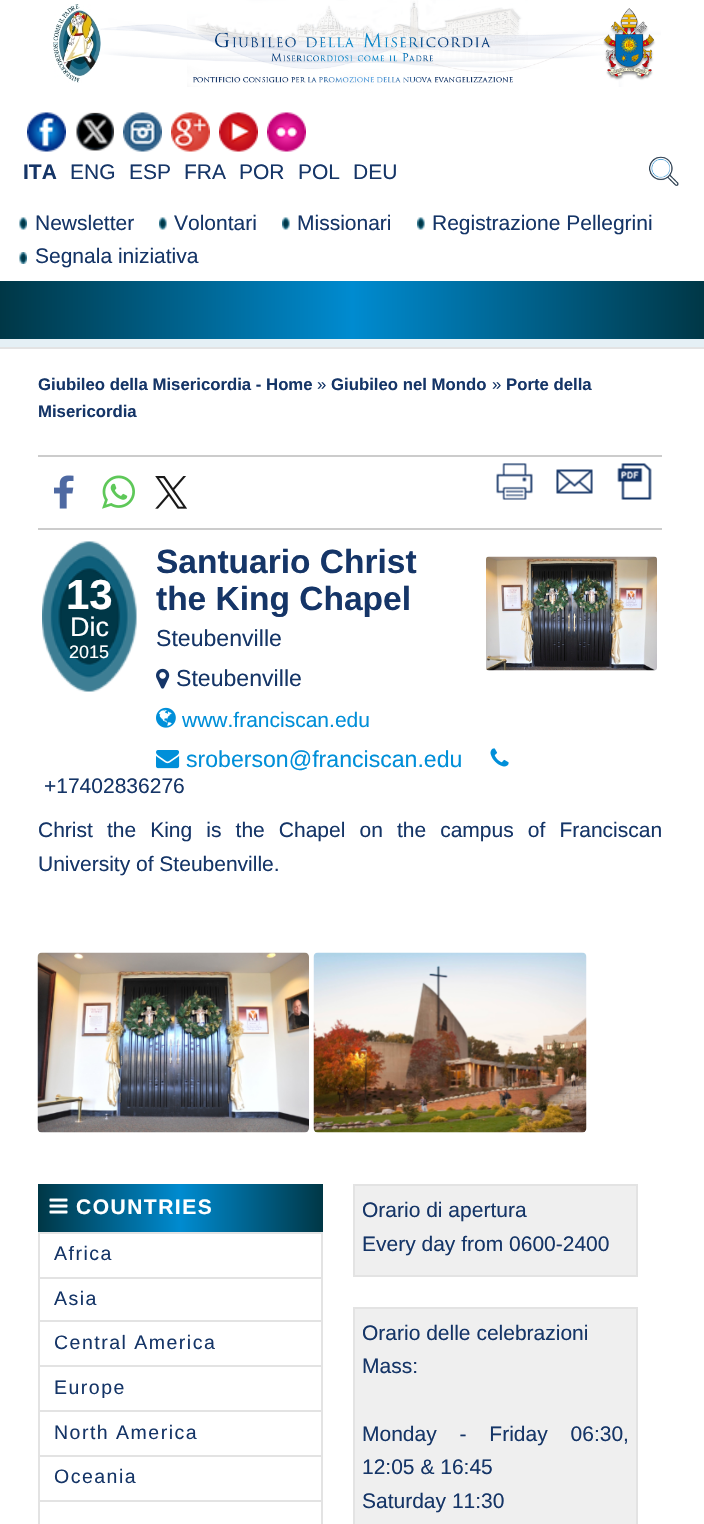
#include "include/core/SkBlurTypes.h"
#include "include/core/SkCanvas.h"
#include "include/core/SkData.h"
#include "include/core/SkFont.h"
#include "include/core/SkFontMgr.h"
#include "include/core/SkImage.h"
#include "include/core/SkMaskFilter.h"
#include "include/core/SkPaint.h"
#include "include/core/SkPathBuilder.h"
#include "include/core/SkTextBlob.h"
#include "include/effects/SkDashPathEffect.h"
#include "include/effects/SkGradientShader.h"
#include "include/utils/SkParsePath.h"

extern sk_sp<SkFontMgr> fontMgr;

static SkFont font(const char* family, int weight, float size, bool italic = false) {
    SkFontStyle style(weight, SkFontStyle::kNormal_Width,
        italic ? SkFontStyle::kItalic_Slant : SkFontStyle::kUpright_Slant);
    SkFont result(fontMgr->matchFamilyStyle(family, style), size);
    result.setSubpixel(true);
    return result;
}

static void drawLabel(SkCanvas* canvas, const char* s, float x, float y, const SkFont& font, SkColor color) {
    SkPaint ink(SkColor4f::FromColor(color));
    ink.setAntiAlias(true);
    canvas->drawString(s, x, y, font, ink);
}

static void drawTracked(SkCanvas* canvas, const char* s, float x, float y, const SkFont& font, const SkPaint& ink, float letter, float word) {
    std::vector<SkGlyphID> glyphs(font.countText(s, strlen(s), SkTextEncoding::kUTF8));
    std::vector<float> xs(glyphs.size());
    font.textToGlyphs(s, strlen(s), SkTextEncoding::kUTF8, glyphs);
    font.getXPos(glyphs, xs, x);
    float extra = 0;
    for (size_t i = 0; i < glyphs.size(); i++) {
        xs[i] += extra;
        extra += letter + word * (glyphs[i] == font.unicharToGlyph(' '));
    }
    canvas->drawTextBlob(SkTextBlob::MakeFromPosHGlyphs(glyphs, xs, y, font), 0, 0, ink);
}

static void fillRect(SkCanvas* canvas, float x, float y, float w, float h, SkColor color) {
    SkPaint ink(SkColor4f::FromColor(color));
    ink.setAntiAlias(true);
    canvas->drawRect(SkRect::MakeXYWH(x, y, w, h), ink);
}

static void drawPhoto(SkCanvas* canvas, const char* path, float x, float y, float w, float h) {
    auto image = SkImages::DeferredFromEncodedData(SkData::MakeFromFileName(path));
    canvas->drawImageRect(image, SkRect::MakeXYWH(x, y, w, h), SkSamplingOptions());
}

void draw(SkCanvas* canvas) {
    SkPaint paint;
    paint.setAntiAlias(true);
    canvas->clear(0xFFE5F0F5);
    fillRect(canvas, 0, 0, 704, 281, 0xFFFFFFFF);
    drawPhoto(canvas, "assets/img1.png", 53, 0, 608, 87);
    drawPhoto(canvas, "assets/img2.png", 27, 112, 39, 40);
    drawPhoto(canvas, "assets/img3.png", 76, 112, 38, 39);
    drawPhoto(canvas, "assets/img4.png", 123, 112, 39, 40);
    drawPhoto(canvas, "assets/img5.png", 171, 112, 39, 40);
    drawPhoto(canvas, "assets/img6.png", 219, 112, 39, 40);
    drawPhoto(canvas, "assets/img7.png", 267, 112, 39, 40);
    SkFont font1 = font("Liberation Sans", 700, 21);
    drawLabel(canvas, "ITA", 23, 179, font1, 0xFF153567);
    SkFont font2 = font("Liberation Sans", 400, 21);
    drawLabel(canvas, "ENG", 70, 179, font2, 0xFF153567);
    drawLabel(canvas, "ESP", 129, 179, font2, 0xFF153567);
    drawLabel(canvas, "FRA", 184, 179, font2, 0xFF153567);
    drawLabel(canvas, "POR", 239, 179, font2, 0xFF153567);
    drawLabel(canvas, "POL", 298, 179, font2, 0xFF153567);
    drawLabel(canvas, "DEU", 353, 179, font2, 0xFF153567);
    drawPhoto(canvas, "assets/img8.png", 649, 156, 30, 30);
    drawPhoto(canvas, "assets/img9.png", 19, 217, 8, 13);
    drawLabel(canvas, "Newsletter", 35, 230, font2, 0xFF153567);
    drawPhoto(canvas, "assets/img10.png", 159, 217, 8, 13);
    drawLabel(canvas, "Volontari", 174, 230, font2, 0xFF153567);
    drawPhoto(canvas, "assets/img11.png", 282, 217, 8, 13);
    drawLabel(canvas, "Missionari", 297, 230, font2, 0xFF153567);
    drawPhoto(canvas, "assets/img11.png", 417, 217, 8, 13);
    drawLabel(canvas, "Registrazione Pellegrini", 432, 230, font2, 0xFF153567);
    drawPhoto(canvas, "assets/img12.png", 19, 252, 8, 12);
    drawLabel(canvas, "Segnala iniziativa", 35, 263, font2, 0xFF153567);
    {
        const SkColor colors[] = {0xFF003746, 0xFF008BD0, 0xFF003746};
        const float stops[] = {0, 0.5f, 1};
        const SkPoint ends[] = {{0, 310}, {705, 310}};
        paint.setShader(SkGradientShader::MakeLinear(ends, colors, stops, 3, SkTileMode::kClamp));
        paint.setAlpha(255);
    }
    canvas->drawRect(SkRect::MakeXYWH(0, 281, 704, 58), paint);
    fillRect(canvas, 0, 349, 704, 1175, 0xFFFFFFFF);
    fillRect(canvas, 0, 347, 704, 2, 0xFFE3E3E3);
    SkFont font3 = font("Liberation Sans", 700, 16.75f);
    drawLabel(canvas, "Giubileo della Misericordia - Home", 38, 390, font3, 0xFF153567);
    SkFont font4 = font("Liberation Sans", 400, 16.75f);
    drawLabel(canvas, "»", 317, 390, font4, 0xFF153567);
    drawLabel(canvas, "Giubileo nel Mondo", 331, 390, font3, 0xFF153567);
    drawLabel(canvas, "»", 492, 390, font4, 0xFF153567);
    drawLabel(canvas, "Porte della", 506, 390, font3, 0xFF153567);
    drawLabel(canvas, "Misericordia", 38, 417, font3, 0xFF153567);
    fillRect(canvas, 38, 455, 624, 2, 0xFFCCCCCC);
    fillRect(canvas, 38, 528, 624, 2, 0xFFCCCCCC);
    drawPhoto(canvas, "assets/img13.png", 54, 475, 20, 34);
    drawPhoto(canvas, "assets/img14.png", 102, 475, 33, 34);
    drawPhoto(canvas, "assets/img15.png", 155, 476, 32, 33);
    drawPhoto(canvas, "assets/img16.png", 496, 463, 37, 37);
    drawPhoto(canvas, "assets/img17.png", 556, 469, 37, 25);
    drawPhoto(canvas, "assets/img18.png", 617, 463, 35, 37);
    drawPhoto(canvas, "assets/img19.png", 42, 541, 95, 151);
    SkFont font5 = font("Liberation Sans", 700, 42);
    drawLabel(canvas, "13", 66, 609, font5, 0xFFFFFFFF);
    SkFont font6 = font("Liberation Sans", 400, 27);
    drawLabel(canvas, "Dic", 70, 636, font6, 0xFFFFFFFF);
    SkFont font7 = font("Liberation Sans", 400, 18);
    drawLabel(canvas, "2015", 69, 658, font7, 0xFFFFFFFF);
    SkFont font8 = font("Liberation Sans", 700, 33.5f);
    drawLabel(canvas, "Santuario Christ", 156, 573, font8, 0xFF153567);
    drawLabel(canvas, "the King Chapel", 156, 610, font8, 0xFF153567);
    SkFont font9 = font("Liberation Sans", 400, 23.1f);
    drawLabel(canvas, "Steubenville", 156, 646, font9, 0xFF153567);
    drawPhoto(canvas, "assets/img20.png", 486, 556, 171, 115);
    drawPhoto(canvas, "assets/img21.png", 156, 668, 14, 21);
    drawLabel(canvas, "Steubenville", 176, 686, font9, 0xFF153567);
    drawPhoto(canvas, "assets/img22.png", 156, 707, 20, 21);
    drawLabel(canvas, "www.franciscan.edu", 182, 727, font2, 0xFF008FD9);
    drawPhoto(canvas, "assets/img23.png", 156, 750, 24, 19);
    drawLabel(canvas, "sroberson@franciscan.edu", 186, 767, font9, 0xFF008FD9);
    drawPhoto(canvas, "assets/img24.png", 490, 748, 19, 19);
    drawLabel(canvas, "+17402836276", 44, 793, font2, 0xFF153567);
    paint.setShader(nullptr);
    paint.setColor(0xFF153567);
    drawTracked(canvas, "Christ the King is the Chapel on the campus of Franciscan", 38, 837, font2, paint, 0, 8.25f);
    drawLabel(canvas, "University of Steubenville.", 38, 871, font2, 0xFF153567);
    drawPhoto(canvas, "assets/img25.png", 37, 952, 272, 181);
    drawPhoto(canvas, "assets/img26.png", 313, 952, 274, 181);
    {
        const SkColor colors[] = {0xFF003746, 0xFF008BD0, 0xFF003746};
        const float stops[] = {0, 0.5f, 1};
        const SkPoint ends[] = {{38, 1208}, {323, 1208}};
        paint.setShader(SkGradientShader::MakeLinear(ends, colors, stops, 3, SkTileMode::kClamp));
        paint.setAlpha(255);
    }
    canvas->drawRect(SkRect::MakeXYWH(38, 1184, 285, 48), paint);
    drawPhoto(canvas, "assets/img27.png", 49, 1198, 19, 16);
    paint.setShader(nullptr);
    paint.setColor(0xFFFFFFFF);
    drawTracked(canvas, "COUNTRIES", 76, 1214, font1, paint, 1.5f, 0);
    fillRect(canvas, 321, 1232, 2, 292, 0xFFE3E3E3);
    fillRect(canvas, 38, 1232, 2, 292, 0xFFE3E3E3);
    fillRect(canvas, 39, 1232, 282, 2, 0xFFE3E3E3);
    SkFont font10 = font("Liberation Sans", 400, 19.5f);
    paint.setColor(0xFF153567);
    drawTracked(canvas, "Africa", 54, 1260, font10, paint, 1.5f, 0);
    fillRect(canvas, 39, 1277, 282, 2, 0xFFE3E3E3);
    drawTracked(canvas, "Asia", 54, 1305, font10, paint, 1.5f, 0);
    fillRect(canvas, 39, 1320, 282, 2, 0xFFE3E3E3);
    drawTracked(canvas, "Central America", 54, 1349, font10, paint, 1.5f, 0);
    fillRect(canvas, 39, 1365, 282, 2, 0xFFE3E3E3);
    drawTracked(canvas, "Europe", 54, 1394, font10, paint, 1.5f, 0);
    fillRect(canvas, 39, 1410, 282, 2, 0xFFE3E3E3);
    drawTracked(canvas, "North America", 54, 1439, font10, paint, 1.5f, 0);
    fillRect(canvas, 39, 1455, 282, 2, 0xFFE3E3E3);
    drawTracked(canvas, "Oceania", 54, 1483, font10, paint, 1.5f, 0);
    fillRect(canvas, 39, 1500, 282, 2, 0xFFE3E3E3);
    paint.setColor(0xFFEFEFEF);
    canvas->drawRect(SkRect::MakeXYWH(354, 1185, 283, 91), paint);
    paint.setStroke(true);
    paint.setStrokeWidth(2);
    paint.setColor(0xFFE3E3E3);
    canvas->drawRect(SkRect::MakeXYWH(354, 1185, 283, 91), paint);
    drawLabel(canvas, "Orario di apertura", 362, 1217, font2, 0xFF153567);
    drawLabel(canvas, "Every day from 0600-2400", 362, 1251, font2, 0xFF153567);
    paint.setStroke(false);
    paint.setColor(0xFFEFEFEF);
    canvas->drawRect(SkRect::MakeXYWH(354, 1308, 283, 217), paint);
    paint.setStroke(true);
    paint.setColor(0xFFE3E3E3);
    canvas->drawRect(SkRect::MakeXYWH(354, 1308, 283, 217), paint);
    drawLabel(canvas, "Orario delle celebrazioni", 362, 1340, font2, 0xFF153567);
    drawLabel(canvas, "Mass:", 362, 1373, font2, 0xFF153567);
    paint.setStroke(false);
    paint.setColor(0xFF153567);
    drawTracked(canvas, "Monday - Friday 06:30,", 362, 1441, font2, paint, 0, 17);
    drawLabel(canvas, "12:05 & 16:45", 362, 1474, font2, 0xFF153567);
    drawLabel(canvas, "Saturday 11:30", 362, 1508, font2, 0xFF153567);
}
